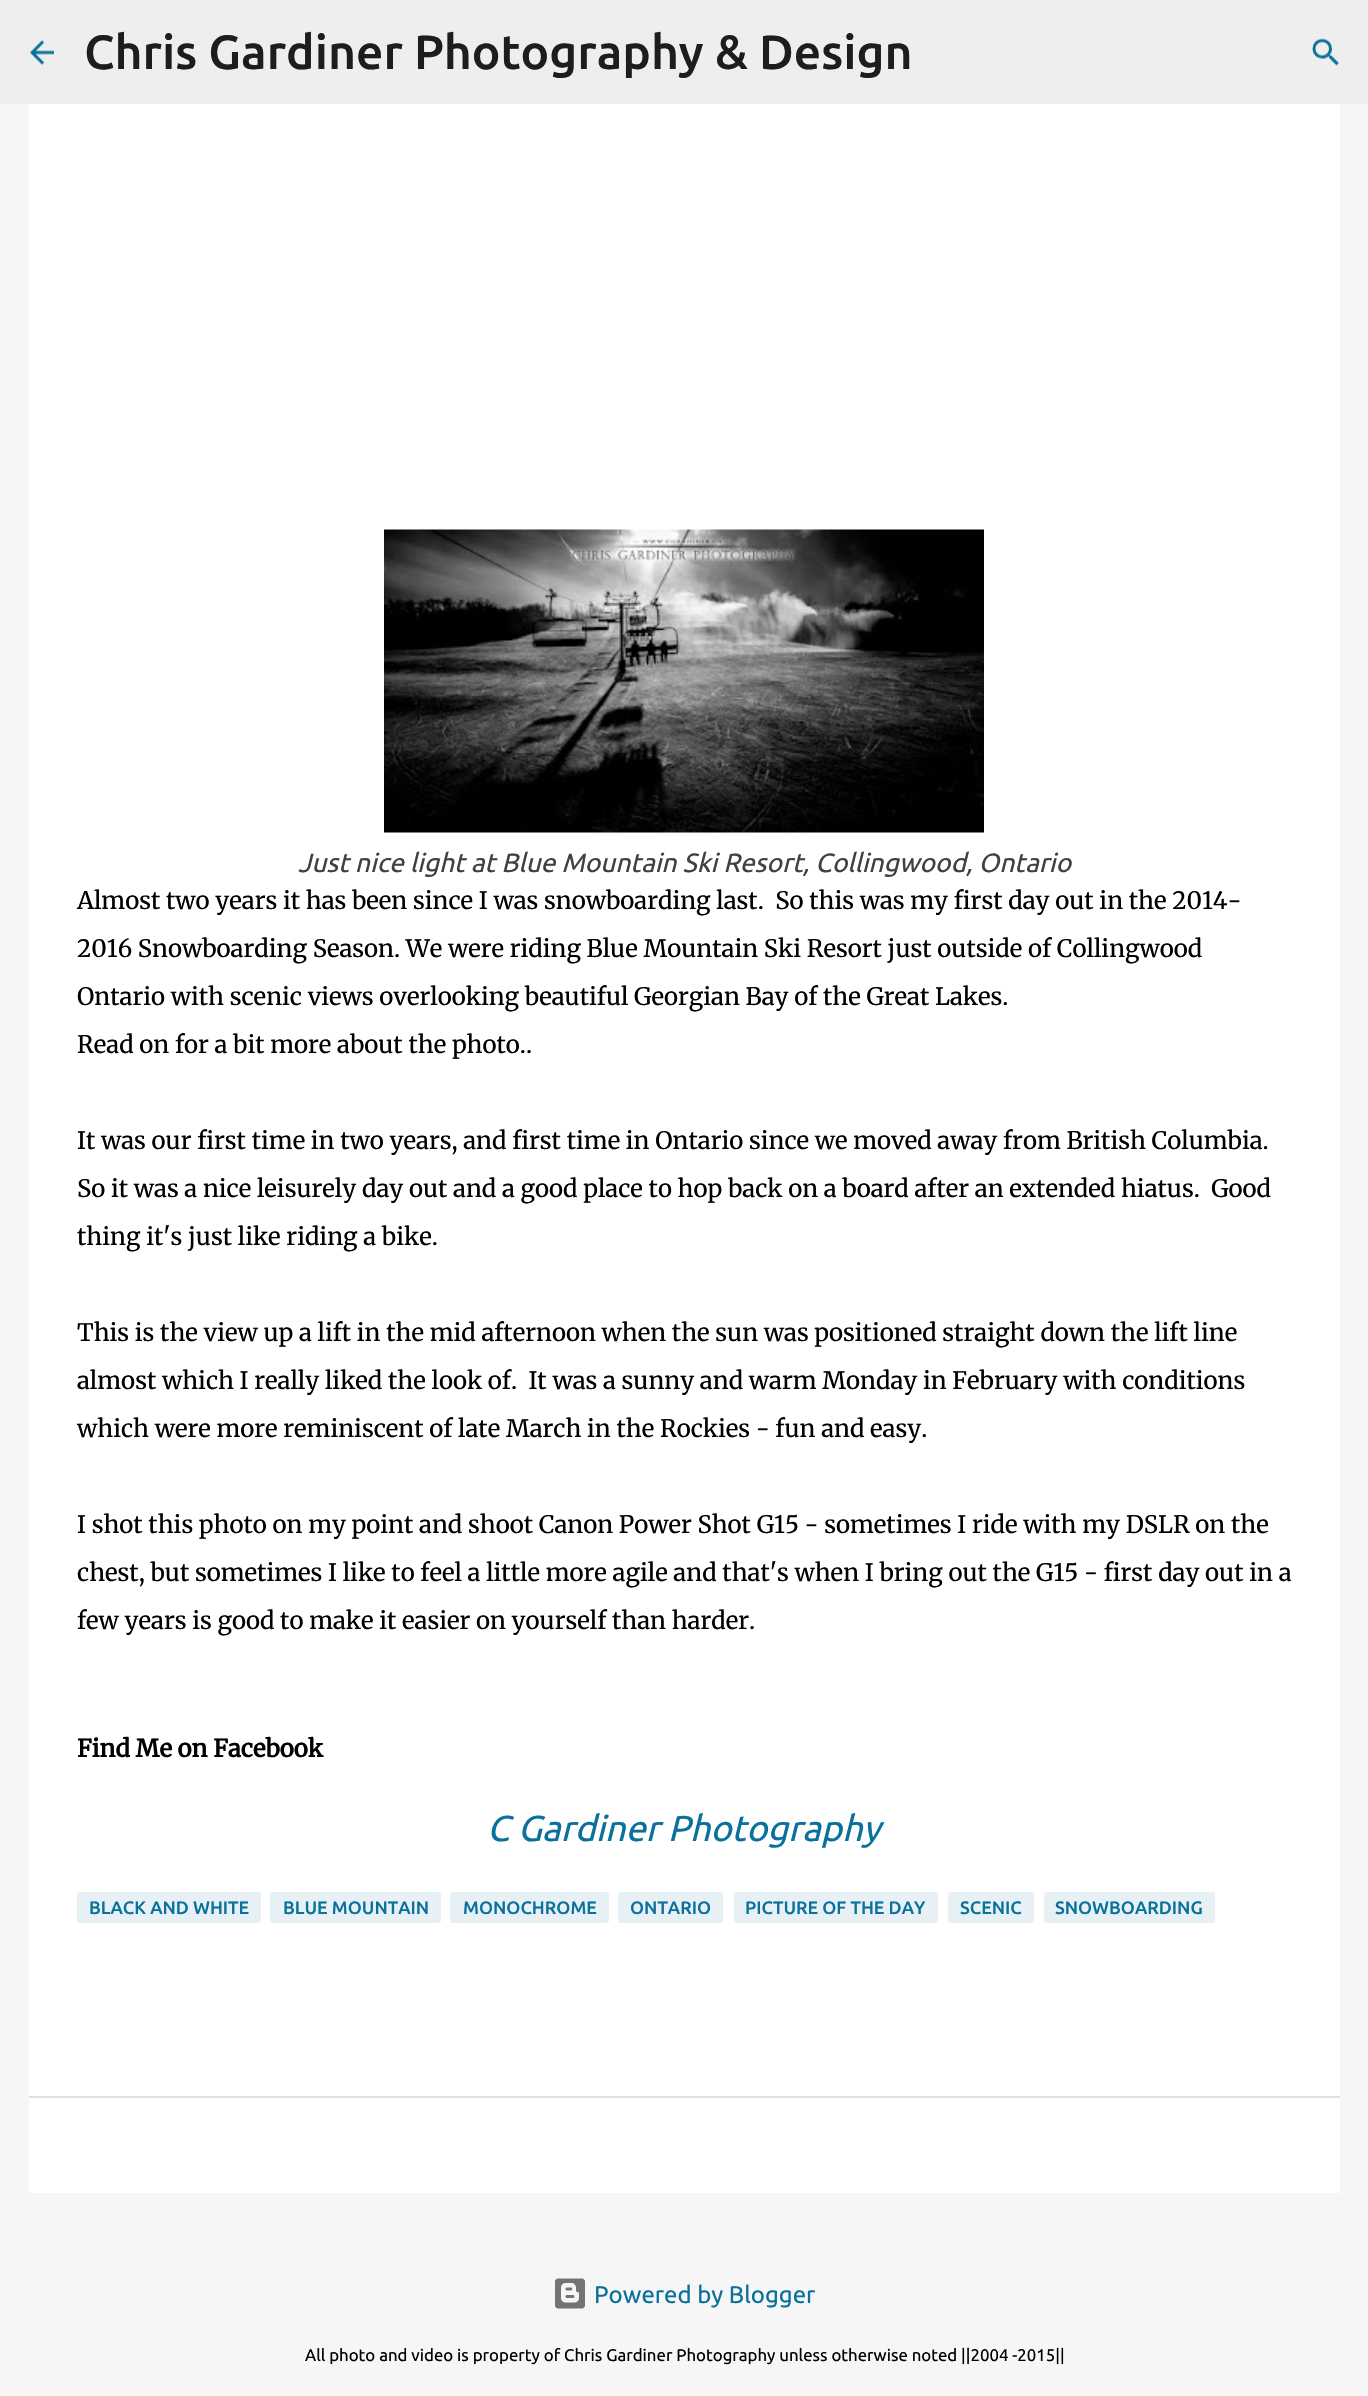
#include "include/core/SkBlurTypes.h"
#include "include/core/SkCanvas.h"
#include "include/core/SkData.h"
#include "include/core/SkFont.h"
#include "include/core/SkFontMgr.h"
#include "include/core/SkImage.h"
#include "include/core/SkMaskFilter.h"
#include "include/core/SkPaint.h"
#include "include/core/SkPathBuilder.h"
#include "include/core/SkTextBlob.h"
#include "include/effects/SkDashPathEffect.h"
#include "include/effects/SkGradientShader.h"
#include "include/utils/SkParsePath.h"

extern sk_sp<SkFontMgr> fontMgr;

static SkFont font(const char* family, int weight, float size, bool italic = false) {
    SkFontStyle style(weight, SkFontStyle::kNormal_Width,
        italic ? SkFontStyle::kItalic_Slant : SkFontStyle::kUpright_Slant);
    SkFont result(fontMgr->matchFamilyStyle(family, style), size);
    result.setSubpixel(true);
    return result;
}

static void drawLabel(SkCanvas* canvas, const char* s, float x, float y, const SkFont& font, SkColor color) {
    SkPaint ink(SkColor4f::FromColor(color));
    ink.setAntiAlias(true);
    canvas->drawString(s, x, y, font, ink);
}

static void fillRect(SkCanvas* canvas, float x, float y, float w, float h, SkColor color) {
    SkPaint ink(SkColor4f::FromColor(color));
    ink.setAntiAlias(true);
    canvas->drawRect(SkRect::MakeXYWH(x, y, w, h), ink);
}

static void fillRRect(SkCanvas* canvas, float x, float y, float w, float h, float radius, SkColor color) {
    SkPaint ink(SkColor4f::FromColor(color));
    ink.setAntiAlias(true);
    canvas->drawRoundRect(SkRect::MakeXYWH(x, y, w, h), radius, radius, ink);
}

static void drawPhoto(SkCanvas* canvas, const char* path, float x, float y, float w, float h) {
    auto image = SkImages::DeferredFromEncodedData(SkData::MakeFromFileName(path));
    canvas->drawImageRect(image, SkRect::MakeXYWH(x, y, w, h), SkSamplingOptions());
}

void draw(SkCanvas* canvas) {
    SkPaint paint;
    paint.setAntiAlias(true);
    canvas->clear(0xFFF6F6F6);
    fillRect(canvas, 0, 0, 1368, 104, 0xFFEEEEEE);
    drawPhoto(canvas, "assets/img1.png", 30, 40, 24, 25);
    SkFont font1 = font("Ubuntu", 500, 48);
    drawLabel(canvas, "Chris Gardiner Photography & Design", 84, 69, font1, 0xFF1D1D1D);
    drawPhoto(canvas, "assets/img2.png", 1312, 38, 27, 28);
    fillRect(canvas, 29, 104, 1311, 1992, 0xFFFFFFFF);
    drawPhoto(canvas, "assets/img3.png", 384, 529, 600, 304);
    SkFont font2 = font("Ubuntu", 400, 26.4f, true);
    drawLabel(canvas, "Just nice light at Blue Mountain Ski Resort, Collingwood, Ontario", 298, 872, font2, 0xFF414141);
    SkFont font3 = font("Merriweather", 300, 24);
    drawLabel(canvas, "Almost two years it has been since I was snowboarding last.  So this was my first day out in the 2014-", 77, 909, font3, 0xFF000000);
    drawLabel(canvas, "2016 Snowboarding Season. We were riding Blue Mountain Ski Resort just outside of Collingwood", 77, 957, font3, 0xFF000000);
    drawLabel(canvas, "Ontario with scenic views overlooking beautiful Georgian Bay of the Great Lakes.", 77, 1005, font3, 0xFF000000);
    drawLabel(canvas, "Read on for a bit more about the photo..", 77, 1053, font3, 0xFF000000);
    drawLabel(canvas, "It was our first time in two years, and first time in Ontario since we moved away from British Columbia.", 77, 1149, font3, 0xFF000000);
    drawLabel(canvas, "So it was a nice leisurely day out and a good place to hop back on a board after an extended hiatus.  Good", 77, 1197, font3, 0xFF000000);
    drawLabel(canvas, "thing it's just like riding a bike.", 77, 1245, font3, 0xFF000000);
    drawLabel(canvas, "This is the view up a lift in the mid afternoon when the sun was positioned straight down the lift line", 77, 1341, font3, 0xFF000000);
    drawLabel(canvas, "almost which I really liked the look of.  It was a sunny and warm Monday in February with conditions", 77, 1389, font3, 0xFF000000);
    drawLabel(canvas, "which were more reminiscent of late March in the Rockies - fun and easy.", 77, 1437, font3, 0xFF000000);
    drawLabel(canvas, "I shot this photo on my point and shoot Canon Power Shot G15 - sometimes I ride with my DSLR on the", 77, 1533, font3, 0xFF000000);
    drawLabel(canvas, "chest, but sometimes I like to feel a little more agile and that's when I bring out the G15 - first day out in a", 77, 1581, font3, 0xFF000000);
    drawLabel(canvas, "few years is good to make it easier on yourself than harder.", 77, 1629, font3, 0xFF000000);
    SkFont font4 = font("Merriweather", 700, 24);
    drawLabel(canvas, "Find Me on Facebook", 77, 1757, font4, 0xFF000000);
    SkFont font5 = font("Ubuntu", 400, 36, true);
    drawLabel(canvas, "C Gardiner Photography", 487, 1841, font5, 0xFF0A719C);
    fillRRect(canvas, 77, 1892, 184, 31, 3, 0xFFE7F1F5);
    SkFont font6 = font("Ubuntu", 500, 18);
    drawLabel(canvas, "BLACK AND WHITE", 89, 1914, font6, 0xFF0A719C);
    fillRRect(canvas, 270, 1892, 171, 31, 3, 0xFFE7F1F5);
    drawLabel(canvas, "BLUE MOUNTAIN", 283, 1914, font6, 0xFF0A719C);
    fillRRect(canvas, 450, 1892, 159, 31, 3, 0xFFE7F1F5);
    drawLabel(canvas, "MONOCHROME", 463, 1914, font6, 0xFF0A719C);
    fillRRect(canvas, 618, 1892, 105, 31, 3, 0xFFE7F1F5);
    drawLabel(canvas, "ONTARIO", 630, 1914, font6, 0xFF0A719C);
    fillRRect(canvas, 734, 1892, 204, 31, 3, 0xFFE7F1F5);
    drawLabel(canvas, "PICTURE OF THE DAY", 745, 1914, font6, 0xFF0A719C);
    fillRRect(canvas, 948, 1892, 86, 31, 3, 0xFFE7F1F5);
    drawLabel(canvas, "SCENIC", 960, 1914, font6, 0xFF0A719C);
    fillRRect(canvas, 1044, 1892, 171, 31, 3, 0xFFE7F1F5);
    drawLabel(canvas, "SNOWBOARDING", 1055, 1914, font6, 0xFF0A719C);
    fillRect(canvas, 29, 2098, 1311, 95, 0xFFFFFFFF);
    fillRect(canvas, 29, 2096, 1311, 2, 0xFFE0E0E0);
    drawPhoto(canvas, "assets/img4.png", 555, 2278, 30, 31);
    SkFont font7 = font("Ubuntu", 400, 24);
    drawLabel(canvas, "Powered by Blogger", 594, 2303, font7, 0xFF0A719C);
    SkFont font8 = font("Ubuntu", 400, 16.8f);
    drawLabel(canvas, "All photo and video is property of Chris Gardiner Photography unless otherwise noted ||2004 -2015||", 305, 2361, font8, 0xFF000000);
}
